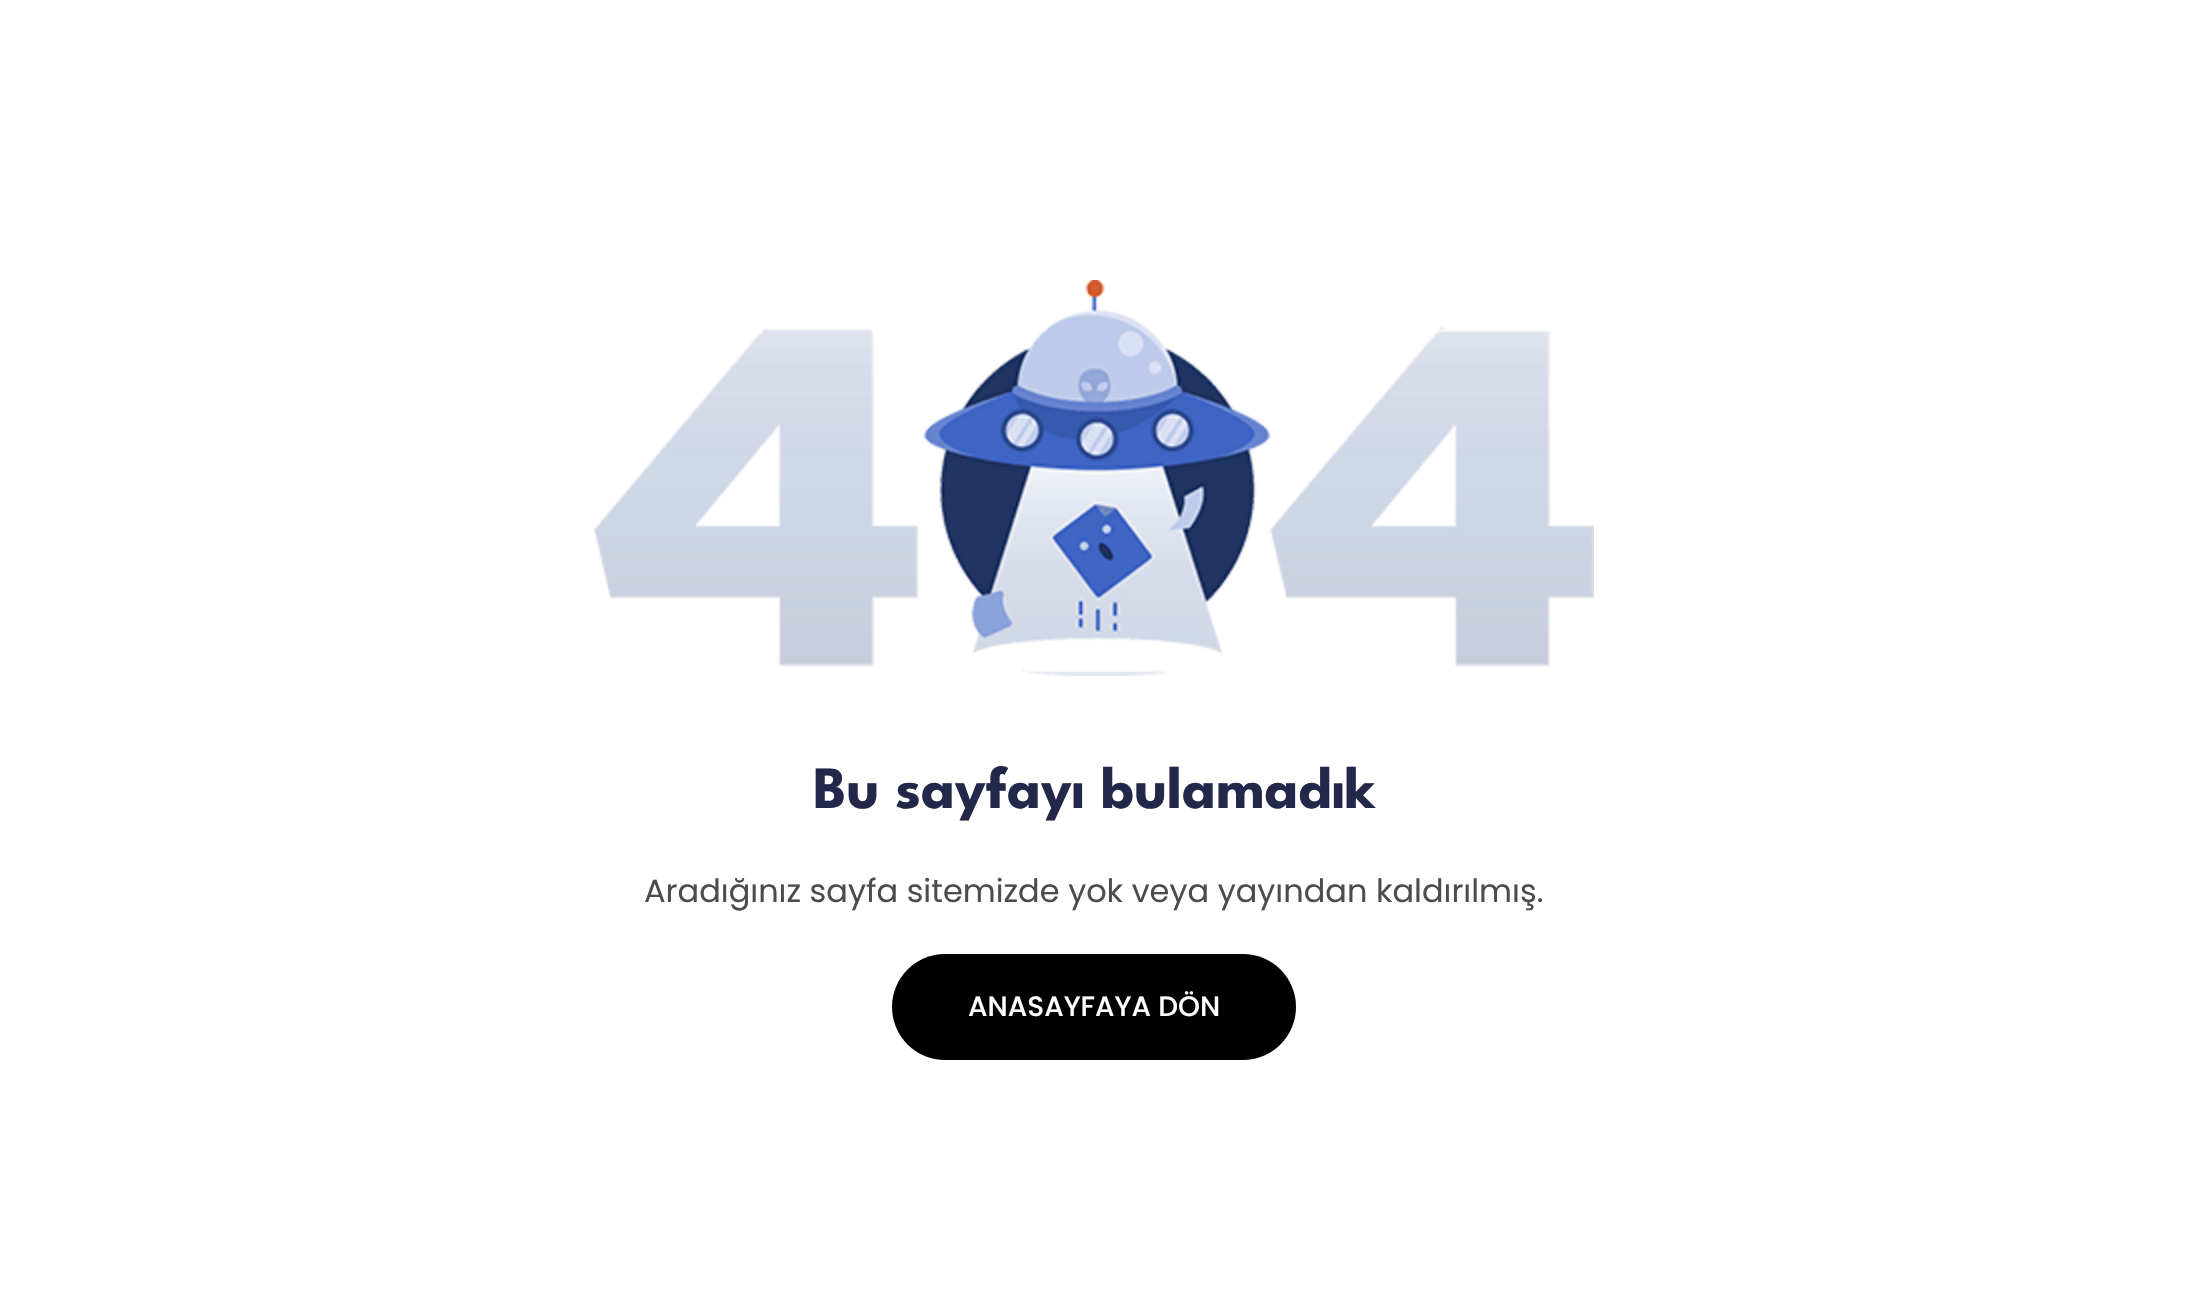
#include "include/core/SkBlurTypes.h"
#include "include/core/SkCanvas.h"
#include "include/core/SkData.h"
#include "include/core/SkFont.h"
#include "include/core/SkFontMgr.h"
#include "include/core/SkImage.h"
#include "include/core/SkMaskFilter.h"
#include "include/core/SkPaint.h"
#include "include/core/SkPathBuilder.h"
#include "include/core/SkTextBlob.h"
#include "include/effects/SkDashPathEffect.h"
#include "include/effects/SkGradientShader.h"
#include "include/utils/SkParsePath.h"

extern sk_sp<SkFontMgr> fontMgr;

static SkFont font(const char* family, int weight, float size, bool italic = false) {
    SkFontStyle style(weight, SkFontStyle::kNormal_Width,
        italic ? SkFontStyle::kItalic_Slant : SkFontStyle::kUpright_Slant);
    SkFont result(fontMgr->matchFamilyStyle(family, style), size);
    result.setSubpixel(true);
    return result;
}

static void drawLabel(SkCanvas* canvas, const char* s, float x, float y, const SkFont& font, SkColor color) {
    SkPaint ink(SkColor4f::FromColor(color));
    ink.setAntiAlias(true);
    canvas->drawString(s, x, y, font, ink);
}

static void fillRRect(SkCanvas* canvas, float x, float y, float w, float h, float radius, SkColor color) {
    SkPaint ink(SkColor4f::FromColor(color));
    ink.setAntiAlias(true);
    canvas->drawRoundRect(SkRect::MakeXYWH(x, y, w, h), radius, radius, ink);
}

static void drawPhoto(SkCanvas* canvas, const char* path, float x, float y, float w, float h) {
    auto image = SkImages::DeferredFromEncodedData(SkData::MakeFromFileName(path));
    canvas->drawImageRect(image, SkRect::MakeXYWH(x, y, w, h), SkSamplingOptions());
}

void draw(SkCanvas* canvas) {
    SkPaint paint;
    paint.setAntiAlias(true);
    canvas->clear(0xFFFFFFFF);
    drawPhoto(canvas, "assets/img1.png", 594, 280, 1000, 396);
    SkFont font1 = font("League Spartan", 700, 60);
    drawLabel(canvas, "Bu sayfayı bulamadık", 813, 808, font1, 0xFF23274A);
    SkFont font2 = font("Poppins", 400, 32);
    drawLabel(canvas, "Aradığınız sayfa sitemizde yok veya yayından kaldırılmış.", 644, 902, font2, 0xFF4C4C4C);
    fillRRect(canvas, 892, 954, 404, 106, 53, 0xFF000000);
    SkFont font3 = font("Poppins", 500, 28);
    drawLabel(canvas, "ANASAYFAYA DÖN", 968, 1016, font3, 0xFFFFFFFF);
}
